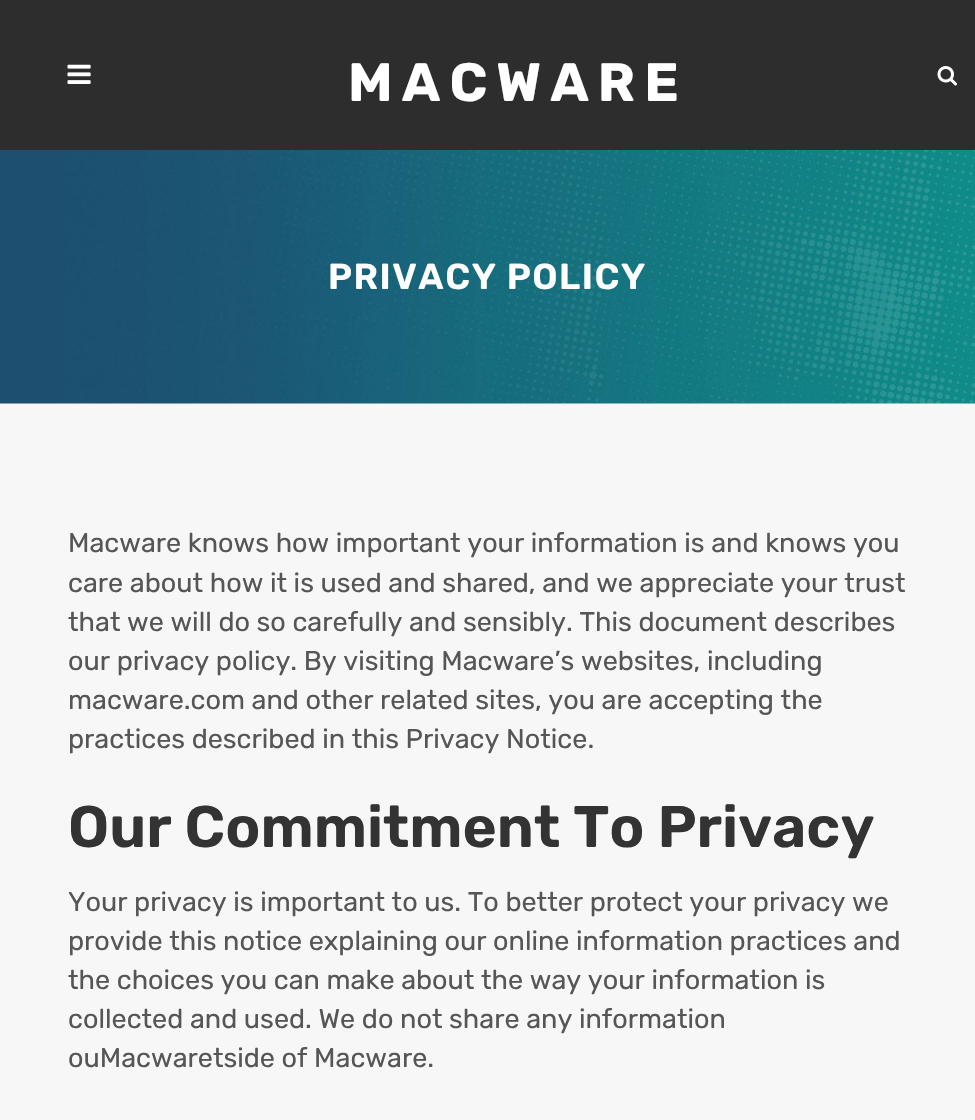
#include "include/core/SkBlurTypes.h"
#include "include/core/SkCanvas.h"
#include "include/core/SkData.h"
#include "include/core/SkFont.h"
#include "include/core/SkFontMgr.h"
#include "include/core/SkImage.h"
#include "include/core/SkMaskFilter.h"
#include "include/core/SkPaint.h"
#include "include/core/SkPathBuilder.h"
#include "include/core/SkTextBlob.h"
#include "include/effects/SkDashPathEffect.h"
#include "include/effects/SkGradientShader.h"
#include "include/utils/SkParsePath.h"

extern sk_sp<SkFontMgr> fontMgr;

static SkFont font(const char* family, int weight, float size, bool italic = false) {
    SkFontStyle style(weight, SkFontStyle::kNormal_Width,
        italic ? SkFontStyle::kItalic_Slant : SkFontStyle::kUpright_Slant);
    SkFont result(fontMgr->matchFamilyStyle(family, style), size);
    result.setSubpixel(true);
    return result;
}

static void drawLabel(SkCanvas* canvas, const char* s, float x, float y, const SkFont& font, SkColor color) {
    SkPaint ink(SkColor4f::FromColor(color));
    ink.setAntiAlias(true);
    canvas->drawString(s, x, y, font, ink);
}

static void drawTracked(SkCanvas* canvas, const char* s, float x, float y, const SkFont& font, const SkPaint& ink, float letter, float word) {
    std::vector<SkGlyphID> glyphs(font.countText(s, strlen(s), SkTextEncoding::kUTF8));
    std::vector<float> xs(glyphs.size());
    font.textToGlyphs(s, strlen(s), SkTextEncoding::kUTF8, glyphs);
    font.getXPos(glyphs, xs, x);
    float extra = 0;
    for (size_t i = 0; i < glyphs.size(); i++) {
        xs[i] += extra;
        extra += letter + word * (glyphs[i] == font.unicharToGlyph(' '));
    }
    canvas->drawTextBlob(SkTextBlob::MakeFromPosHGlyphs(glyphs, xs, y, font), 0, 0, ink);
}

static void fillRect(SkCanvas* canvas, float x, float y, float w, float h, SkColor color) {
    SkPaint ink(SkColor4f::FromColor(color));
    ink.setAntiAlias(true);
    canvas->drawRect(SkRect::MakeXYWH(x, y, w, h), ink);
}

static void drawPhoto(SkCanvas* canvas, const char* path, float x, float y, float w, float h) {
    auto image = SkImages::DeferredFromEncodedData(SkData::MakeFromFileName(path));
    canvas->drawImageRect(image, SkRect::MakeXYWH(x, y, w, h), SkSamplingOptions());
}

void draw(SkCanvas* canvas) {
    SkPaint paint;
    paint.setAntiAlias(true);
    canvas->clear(0xFFF7F7F7);
    fillRect(canvas, 0, 0, 975, 150, 0xFF2D2D2D);
    drawPhoto(canvas, "assets/img1.png", 67, 64, 24, 20);
    SkFont font1 = font("Rubik", 700, 54);
    paint.setColor(0xFFFFFFFF);
    drawTracked(canvas, "MACWARE", 348, 101, font1, paint, 9, 0);
    drawPhoto(canvas, "assets/img2.png", 937, 66, 20, 20);
    drawPhoto(canvas, "assets/img3.png", 0, 150, 975, 254);
    SkFont font2 = font("Rubik", 600, 36);
    drawTracked(canvas, "PRIVACY POLICY", 328, 289, font2, paint, 1.5f, 0);
    SkFont font3 = font("Rubik", 400, 27);
    drawLabel(canvas, "Macware knows how important your information is and knows you", 68, 552, font3, 0xFF565656);
    drawLabel(canvas, "care about how it is used and shared, and we appreciate your trust", 68, 592, font3, 0xFF565656);
    drawLabel(canvas, "that we will do so carefully and sensibly. This document describes", 68, 631, font3, 0xFF565656);
    drawLabel(canvas, "our privacy policy. By visiting Macware’s websites, including", 68, 670, font3, 0xFF565656);
    drawLabel(canvas, "macware.com and other related sites, you are accepting the", 68, 709, font3, 0xFF565656);
    drawLabel(canvas, "practices described in this Privacy Notice.", 68, 748, font3, 0xFF565656);
    SkFont font4 = font("Rubik", 600, 58.6f);
    drawLabel(canvas, "Our Commitment To Privacy", 68, 847, font4, 0xFF333333);
    drawLabel(canvas, "Your privacy is important to us. To better protect your privacy we", 68, 911, font3, 0xFF565656);
    drawLabel(canvas, "provide this notice explaining our online information practices and", 68, 950, font3, 0xFF565656);
    drawLabel(canvas, "the choices you can make about the way your information is", 68, 989, font3, 0xFF565656);
    drawLabel(canvas, "collected and used. We do not share any information", 68, 1028, font3, 0xFF565656);
    drawLabel(canvas, "ouMacwaretside of Macware.", 68, 1067, font3, 0xFF565656);
}
